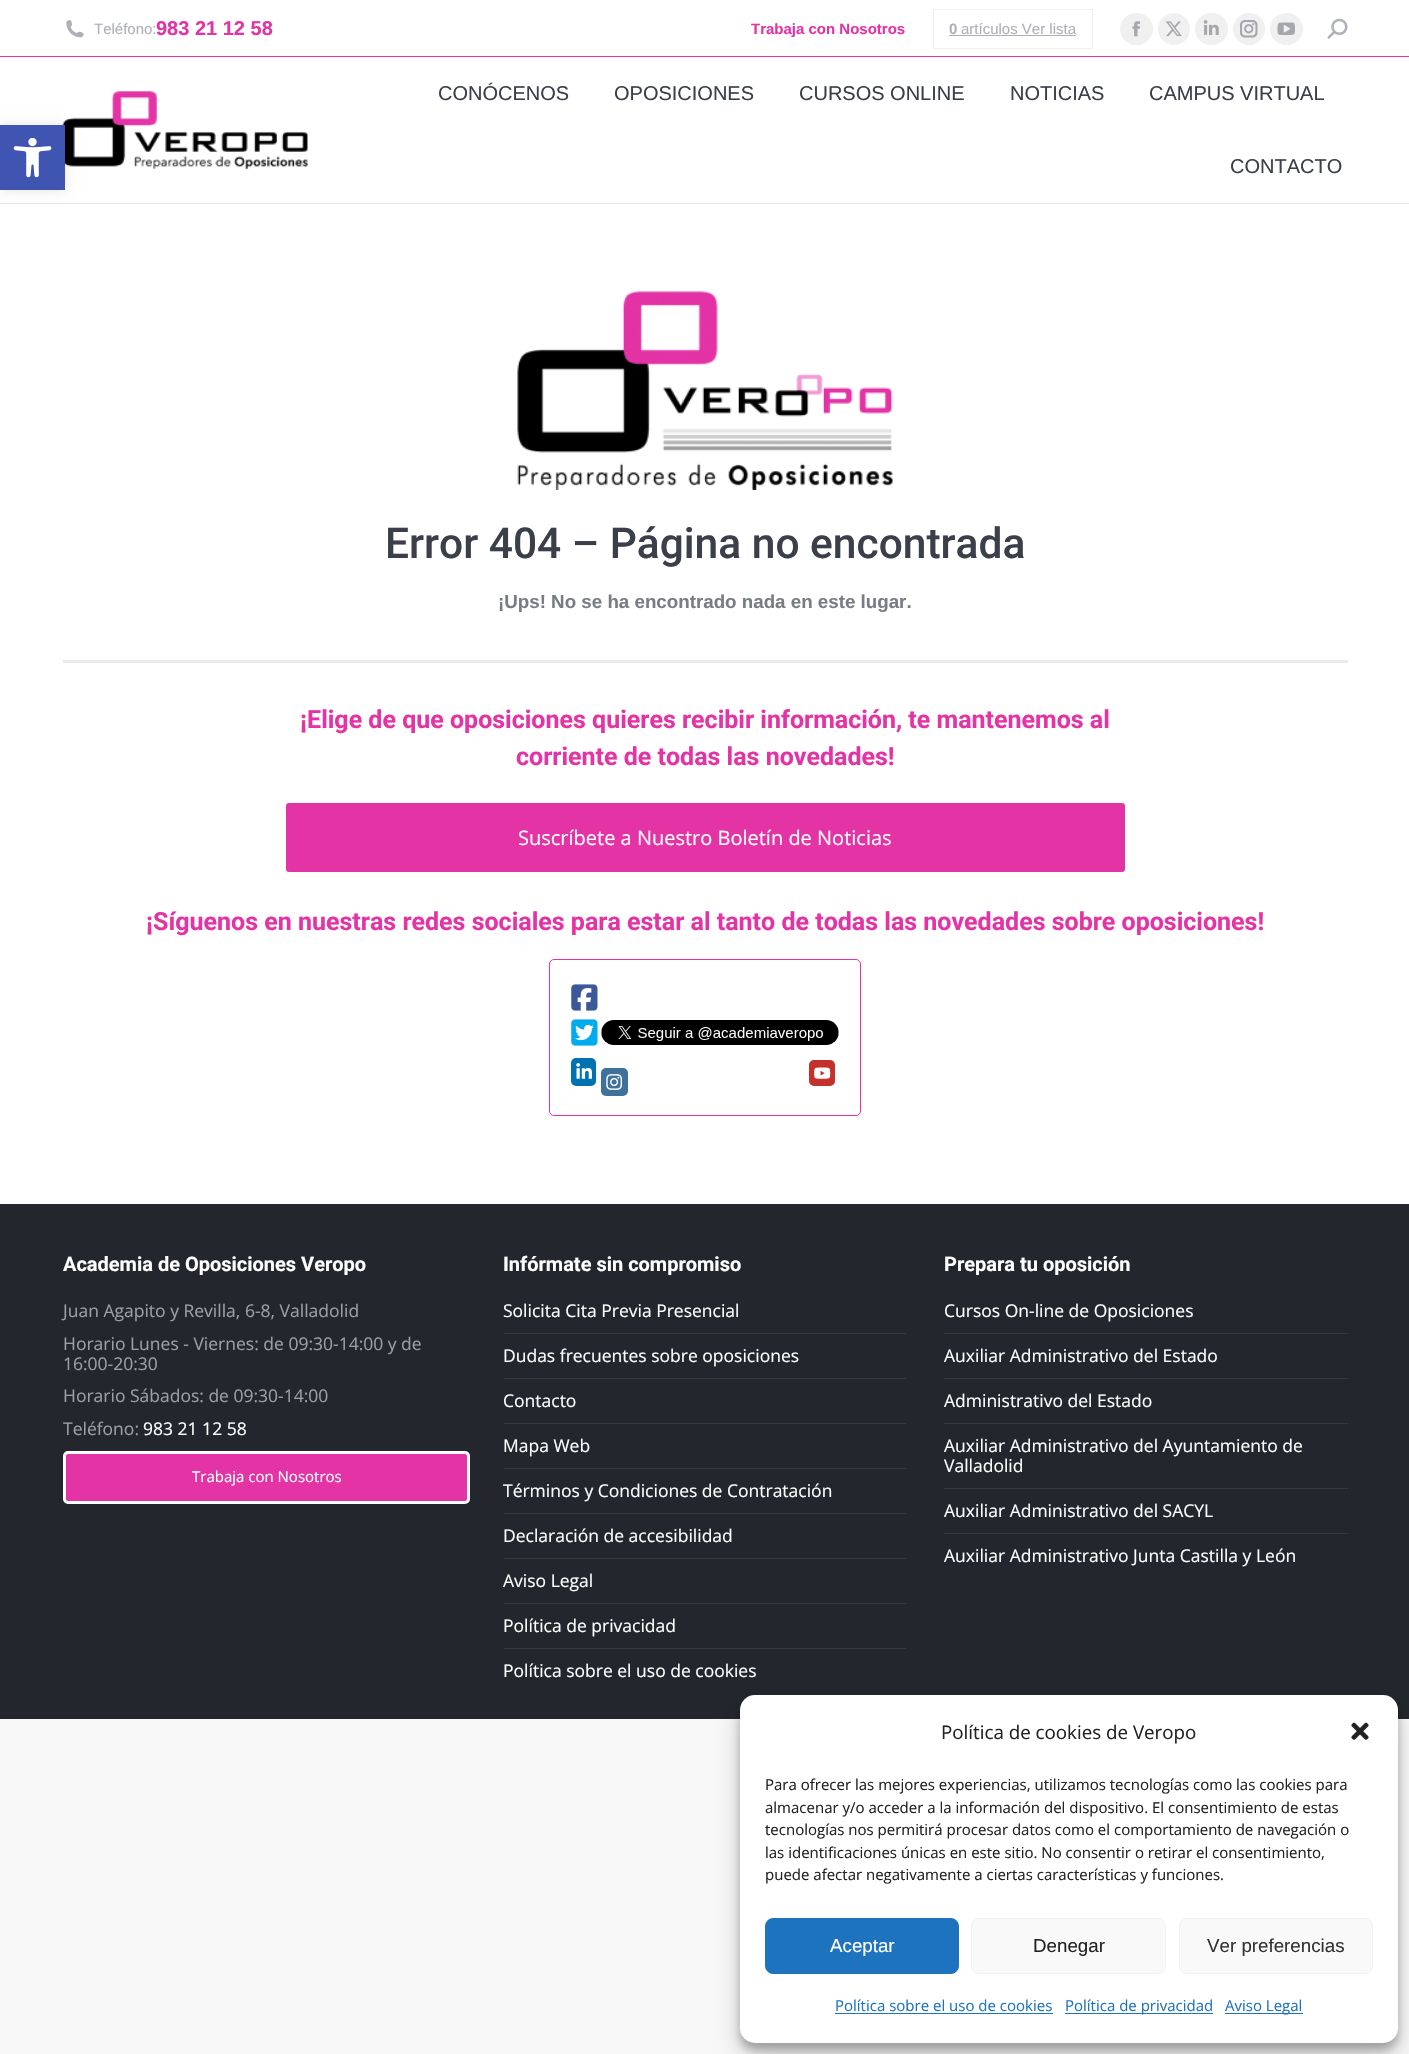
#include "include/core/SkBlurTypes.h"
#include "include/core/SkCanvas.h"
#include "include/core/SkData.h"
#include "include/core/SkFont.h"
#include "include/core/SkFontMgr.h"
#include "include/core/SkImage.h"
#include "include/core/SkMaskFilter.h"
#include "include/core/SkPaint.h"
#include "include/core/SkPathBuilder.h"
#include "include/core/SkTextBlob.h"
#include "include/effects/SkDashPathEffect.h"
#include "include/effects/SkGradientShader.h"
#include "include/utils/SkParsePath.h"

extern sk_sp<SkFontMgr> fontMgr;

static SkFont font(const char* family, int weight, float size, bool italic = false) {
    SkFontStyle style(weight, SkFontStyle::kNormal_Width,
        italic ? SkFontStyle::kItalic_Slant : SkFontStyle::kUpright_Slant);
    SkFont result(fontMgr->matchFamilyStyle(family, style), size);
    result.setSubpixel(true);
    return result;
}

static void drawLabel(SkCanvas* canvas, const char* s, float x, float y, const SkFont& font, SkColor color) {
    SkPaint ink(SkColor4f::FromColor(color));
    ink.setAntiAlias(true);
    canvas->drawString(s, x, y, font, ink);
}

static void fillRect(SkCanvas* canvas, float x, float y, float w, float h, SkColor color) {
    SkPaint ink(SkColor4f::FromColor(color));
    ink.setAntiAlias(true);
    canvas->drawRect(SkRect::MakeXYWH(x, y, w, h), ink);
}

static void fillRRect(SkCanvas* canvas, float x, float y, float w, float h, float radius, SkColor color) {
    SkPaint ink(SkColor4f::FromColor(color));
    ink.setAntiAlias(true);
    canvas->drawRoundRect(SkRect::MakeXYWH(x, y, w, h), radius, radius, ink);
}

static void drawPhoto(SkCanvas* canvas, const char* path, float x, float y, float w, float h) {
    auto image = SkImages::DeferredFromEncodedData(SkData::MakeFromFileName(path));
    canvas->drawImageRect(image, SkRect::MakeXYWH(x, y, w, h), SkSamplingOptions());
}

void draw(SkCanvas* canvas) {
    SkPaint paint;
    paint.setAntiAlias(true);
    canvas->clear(0xFFF8F8F9);
    fillRect(canvas, 0, 0, 1409, 1204, 0xFFFFFFFF);
    fillRect(canvas, 0, 203, 1409, 1, 0xFFE6E7E9);
    drawPhoto(canvas, "assets/img9.png", 62, 91, 246, 78);
    paint.setColor(0x1A000000);
    paint.setMaskFilter(SkMaskFilter::MakeBlur(kNormal_SkBlurStyle, 6));
    canvas->drawRect(SkRect::MakeXYWH(0, 125, 65, 65), paint);
    paint.setMaskFilter(nullptr);
    fillRect(canvas, 0, 125, 65, 65, 0xFF4054B2);
    drawPhoto(canvas, "assets/img1.png", 13, 138, 39, 40);
    drawPhoto(canvas, "assets/img2.png", 66, 20, 18, 18);
    SkFont font1 = font("Liberation Sans", 400, 15);
    drawLabel(canvas, "Teléfono:", 94, 34, font1, 0xFFADB0B6);
    SkFont font2 = font("Liberation Sans", 700, 20);
    drawLabel(canvas, "983 21 12 58", 156, 35, font2, 0xFFE333A5);
    SkFont font3 = font("Liberation Sans", 700, 15);
    drawLabel(canvas, "Trabaja con Nosotros", 751, 34, font3, 0xFFE333A5);
    paint.setStroke(true);
    paint.setStrokeWidth(1);
    paint.setColor(0xFFEFEFEF);
    canvas->drawRect(SkRect::MakeXYWH(933.5f, 9.5f, 159, 39), paint);
    drawLabel(canvas, "0", 949, 34, font3, 0xFFADB0B6);
    fillRect(canvas, 949, 35, 127, 1, 0xFFADB0B6);
    drawLabel(canvas, "artículos Ver lista", 961, 34, font1, 0xFFADB0B6);
    fillRRect(canvas, 1120, 13, 33, 32, 16, 0xFFF0F0F1);
    drawPhoto(canvas, "assets/img3.png", 1132, 21, 8, 16);
    paint.setStroke(false);
    paint.setColor(0xFFF0F0F1);
    canvas->drawCircle(1174, 29, 16, paint);
    drawPhoto(canvas, "assets/img4.png", 1165, 21, 17, 16);
    fillRRect(canvas, 1195, 13, 33, 32, 16, 0xFFF0F0F1);
    drawPhoto(canvas, "assets/img5.png", 1203, 20, 16, 15);
    canvas->drawCircle(1249, 29, 16, paint);
    drawPhoto(canvas, "assets/img6.png", 1240, 20, 18, 18);
    fillRRect(canvas, 1270, 13, 33, 32, 16, 0xFFF0F0F1);
    drawPhoto(canvas, "assets/img7.png", 1277, 22, 18, 13);
    drawPhoto(canvas, "assets/img8.png", 1327, 18, 21, 21);
    fillRect(canvas, 0, 56, 1409, 1, 0xFFE333A5);
    SkFont font4 = font("Liberation Sans", 400, 20);
    drawLabel(canvas, "CONÓCENOS", 438, 100, font4, 0xFF3B3F4A);
    drawLabel(canvas, "OPOSICIONES", 614, 100, font4, 0xFF3B3F4A);
    drawLabel(canvas, "CURSOS ONLINE", 799, 100, font4, 0xFF3B3F4A);
    drawLabel(canvas, "NOTICIAS", 1010, 100, font4, 0xFF3B3F4A);
    drawLabel(canvas, "CAMPUS VIRTUAL", 1149, 100, font4, 0xFF3B3F4A);
    drawLabel(canvas, "CONTACTO", 1230, 173, font4, 0xFF3B3F4A);
    drawPhoto(canvas, "assets/img10.png", 517, 291, 376, 199);
    SkFont font5 = font("Roboto", 500, 42.5f);
    drawLabel(canvas, "Error 404 – Página no encontrada", 385, 558, font5, 0xFF3B3F4A);
    SkFont font6 = font("Liberation Sans", 700, 18.75f);
    drawLabel(canvas, "¡Ups! No se ha encontrado nada en este lugar.", 498, 608, font6, 0xFF787D85);
    fillRect(canvas, 63, 660, 1285, 3, 0xFFEBEBEB);
    SkFont font7 = font("Roboto", 700, 25);
    drawLabel(canvas, "¡Elige de que oposiciones quieres recibir información, te mantenemos al", 300, 728, font7, 0xFFE333A5);
    drawLabel(canvas, "corriente de todas las novedades!", 516, 765, font7, 0xFFE333A5);
    paint.setColor(0xFFE333A5);
    canvas->drawRoundRect(SkRect::MakeXYWH(284.5f, 801.5f, 842, 72), 4.5f, 4.5f, paint);
    paint.setStroke(true);
    paint.setStrokeWidth(3);
    paint.setColor(0xFFFFFFFF);
    canvas->drawRoundRect(SkRect::MakeXYWH(284.5f, 801.5f, 842, 72), 4.5f, 4.5f, paint);
    SkFont font8 = font("Open Sans", 400, 20);
    drawLabel(canvas, "Suscríbete a Nuestro Boletín de Noticias", 518, 845, font8, 0xFFFFFFFF);
    drawLabel(canvas, "¡Síguenos en nuestras redes sociales para estar al tanto de todas las novedades sobre oposiciones!", 146, 930, font7, 0xFFE333A5);
    paint.setStrokeWidth(1);
    paint.setColor(0xFFE333A5);
    canvas->drawRoundRect(SkRect::MakeXYWH(549.5f, 959.5f, 311, 156), 4.5f, 4.5f, paint);
    drawPhoto(canvas, "assets/img11.png", 571, 984, 27, 27);
    drawPhoto(canvas, "assets/img12.png", 571, 1019, 27, 27);
    drawPhoto(canvas, "assets/img13.png", 601, 1020, 238, 25);
    fillRRect(canvas, 571, 1058, 25, 28, 5, 0xFF0072B1);
    drawPhoto(canvas, "assets/img14.png", 576, 1063, 16, 16);
    fillRRect(canvas, 601, 1068, 27, 28, 5, 0xFF3F729B);
    drawPhoto(canvas, "assets/img15.png", 606, 1074, 16, 16);
    fillRRect(canvas, 809, 1060, 26, 26, 5, 0xFFC4302B);
    drawPhoto(canvas, "assets/img16.png", 814, 1067, 17, 12);
    fillRect(canvas, 0, 1204, 1409, 515, 0xFF23262D);
    SkFont font9 = font("Roboto", 700, 20);
    drawLabel(canvas, "Academia de Oposiciones Veropo", 63, 1271, font9, 0xFFFFFFFF);
    SkFont font10 = font("Open Sans", 400, 17.5f);
    drawLabel(canvas, "Juan Agapito y Revilla, 6-8, Valladolid", 63, 1317, font10, 0xFF9AA0A7);
    drawLabel(canvas, "Horario Lunes - Viernes: de 09:30-14:00 y de", 63, 1350, font10, 0xFF9AA0A7);
    drawLabel(canvas, "16:00-20:30", 63, 1370, font10, 0xFF9AA0A7);
    drawLabel(canvas, "Horario Sábados: de 09:30-14:00", 63, 1402, font10, 0xFF9AA0A7);
    drawLabel(canvas, "Teléfono:", 63, 1435, font10, 0xFF9AA0A7);
    drawLabel(canvas, "983 21 12 58", 143, 1435, font10, 0xFFFFFFFF);
    paint.setStroke(false);
    canvas->drawRoundRect(SkRect::MakeXYWH(64.5f, 1452.5f, 404, 50), 3.5f, 3.5f, paint);
    paint.setStroke(true);
    paint.setStrokeWidth(3);
    paint.setColor(0xFFFFFFFF);
    canvas->drawRoundRect(SkRect::MakeXYWH(64.5f, 1452.5f, 404, 50), 3.5f, 3.5f, paint);
    SkFont font11 = font("Open Sans", 400, 15);
    drawLabel(canvas, "Trabaja con Nosotros", 192, 1482, font11, 0xFFFFFFFF);
    drawLabel(canvas, "Infórmate sin compromiso", 503, 1271, font9, 0xFFFFFFFF);
    drawLabel(canvas, "Solicita Cita Previa Presencial", 503, 1317, font10, 0xFFFFFFFF);
    fillRect(canvas, 504, 1333, 402, 1, 0xFF35383F);
    drawLabel(canvas, "Dudas frecuentes sobre oposiciones", 503, 1362, font10, 0xFFFFFFFF);
    fillRect(canvas, 504, 1378, 402, 1, 0xFF35383F);
    drawLabel(canvas, "Contacto", 503, 1407, font10, 0xFFFFFFFF);
    fillRect(canvas, 504, 1423, 402, 1, 0xFF35383F);
    drawLabel(canvas, "Mapa Web", 503, 1452, font10, 0xFFFFFFFF);
    fillRect(canvas, 504, 1468, 402, 1, 0xFF35383F);
    drawLabel(canvas, "Términos y Condiciones de Contratación", 503, 1497, font10, 0xFFFFFFFF);
    fillRect(canvas, 504, 1513, 402, 1, 0xFF35383F);
    drawLabel(canvas, "Declaración de accesibilidad", 503, 1542, font10, 0xFFFFFFFF);
    fillRect(canvas, 504, 1558, 402, 1, 0xFF35383F);
    drawLabel(canvas, "Aviso Legal", 503, 1587, font10, 0xFFFFFFFF);
    fillRect(canvas, 504, 1603, 402, 1, 0xFF35383F);
    drawLabel(canvas, "Política de privacidad", 503, 1632, font10, 0xFFFFFFFF);
    fillRect(canvas, 504, 1648, 402, 1, 0xFF35383F);
    drawLabel(canvas, "Política sobre el uso de cookies", 503, 1677, font10, 0xFFFFFFFF);
    drawLabel(canvas, "Prepara tu oposición", 944, 1271, font9, 0xFFFFFFFF);
    drawLabel(canvas, "Cursos On-line de Oposiciones", 944, 1317, font10, 0xFFFFFFFF);
    fillRect(canvas, 944, 1333, 404, 1, 0xFF35383F);
    drawLabel(canvas, "Auxiliar Administrativo del Estado", 944, 1362, font10, 0xFFFFFFFF);
    fillRect(canvas, 944, 1378, 404, 1, 0xFF35383F);
    drawLabel(canvas, "Administrativo del Estado", 944, 1407, font10, 0xFFFFFFFF);
    fillRect(canvas, 944, 1423, 404, 1, 0xFF35383F);
    drawLabel(canvas, "Auxiliar Administrativo del Ayuntamiento de", 944, 1452, font10, 0xFFFFFFFF);
    drawLabel(canvas, "Valladolid", 944, 1472, font10, 0xFFFFFFFF);
    fillRect(canvas, 944, 1488, 404, 1, 0xFF35383F);
    drawLabel(canvas, "Auxiliar Administrativo del SACYL", 944, 1517, font10, 0xFFFFFFFF);
    fillRect(canvas, 944, 1533, 404, 1, 0xFF35383F);
    drawLabel(canvas, "Auxiliar Administrativo Junta Castilla y León", 944, 1562, font10, 0xFFFFFFFF);
    paint.setStroke(false);
    paint.setColor(0x3B000000);
    paint.setMaskFilter(SkMaskFilter::MakeBlur(kNormal_SkBlurStyle, 4));
    canvas->drawRoundRect(SkRect::MakeXYWH(740, 1703, 658, 347), 15, 15, paint);
    paint.setMaskFilter(nullptr);
    paint.setColor(0x30000000);
    paint.setMaskFilter(SkMaskFilter::MakeBlur(kNormal_SkBlurStyle, 12.5f));
    canvas->drawRoundRect(SkRect::MakeXYWH(740, 1708, 658, 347), 15, 15, paint);
    paint.setMaskFilter(nullptr);
    fillRRect(canvas, 740, 1695, 658, 348, 15, 0xFFFFFFFF);
    SkFont font12 = font("Open Sans", 400, 18.75f);
    drawLabel(canvas, "Política de cookies de Veropo", 941, 1739, font12, 0xFF222222);
    drawPhoto(canvas, "assets/img17.png", 1351, 1722, 18, 18);
    drawLabel(canvas, "Para ofrecer las mejores experiencias, utilizamos tecnologías como las cookies para", 765, 1790, font11, 0xFF222222);
    drawLabel(canvas, "almacenar y/o acceder a la información del dispositivo. El consentimiento de estas", 765, 1813, font11, 0xFF222222);
    drawLabel(canvas, "tecnologías nos permitirá procesar datos como el comportamiento de navegación o", 765, 1835, font11, 0xFF222222);
    drawLabel(canvas, "las identificaciones únicas en este sitio. No consentir o retirar el consentimiento,", 765, 1858, font11, 0xFF222222);
    drawLabel(canvas, "puede afectar negativamente a ciertas características y funciones.", 765, 1880, font11, 0xFF222222);
    paint.setColor(0xFF1E73BE);
    canvas->drawRoundRect(SkRect::MakeXYWH(765.5f, 1918.5f, 193, 55), 7.5f, 7.5f, paint);
    paint.setStroke(true);
    paint.setStrokeWidth(1);
    canvas->drawRoundRect(SkRect::MakeXYWH(765.5f, 1918.5f, 193, 55), 7.5f, 7.5f, paint);
    SkFont font13 = font("Liberation Sans", 400, 18.75f);
    drawLabel(canvas, "Aceptar", 830, 1952, font13, 0xFFFFFFFF);
    paint.setStroke(false);
    paint.setColor(0xFFF9F9F9);
    canvas->drawRoundRect(SkRect::MakeXYWH(971.5f, 1918.5f, 194, 55), 7.5f, 7.5f, paint);
    paint.setStroke(true);
    paint.setColor(0xFFF2F2F2);
    canvas->drawRoundRect(SkRect::MakeXYWH(971.5f, 1918.5f, 194, 55), 7.5f, 7.5f, paint);
    drawLabel(canvas, "Denegar", 1033, 1952, font13, 0xFF222222);
    paint.setStroke(false);
    paint.setColor(0xFFF9F9F9);
    canvas->drawRoundRect(SkRect::MakeXYWH(1179.5f, 1918.5f, 193, 55), 7.5f, 7.5f, paint);
    paint.setStroke(true);
    paint.setColor(0xFFF2F2F2);
    canvas->drawRoundRect(SkRect::MakeXYWH(1179.5f, 1918.5f, 193, 55), 7.5f, 7.5f, paint);
    drawLabel(canvas, "Ver preferencias", 1207, 1952, font13, 0xFF333333);
    drawLabel(canvas, "Política sobre el uso de cookies", 835, 2011, font11, 0xFF1E73BE);
    fillRect(canvas, 835, 2013, 218, 1, 0xFF1E73BE);
    fillRect(canvas, 1065, 2013, 148, 1, 0xFF1E73BE);
    drawLabel(canvas, "Política de privacidad", 1065, 2011, font11, 0xFF1E73BE);
    fillRect(canvas, 1225, 2013, 78, 1, 0xFF1E73BE);
    drawLabel(canvas, "Aviso Legal", 1225, 2011, font11, 0xFF1E73BE);
}
